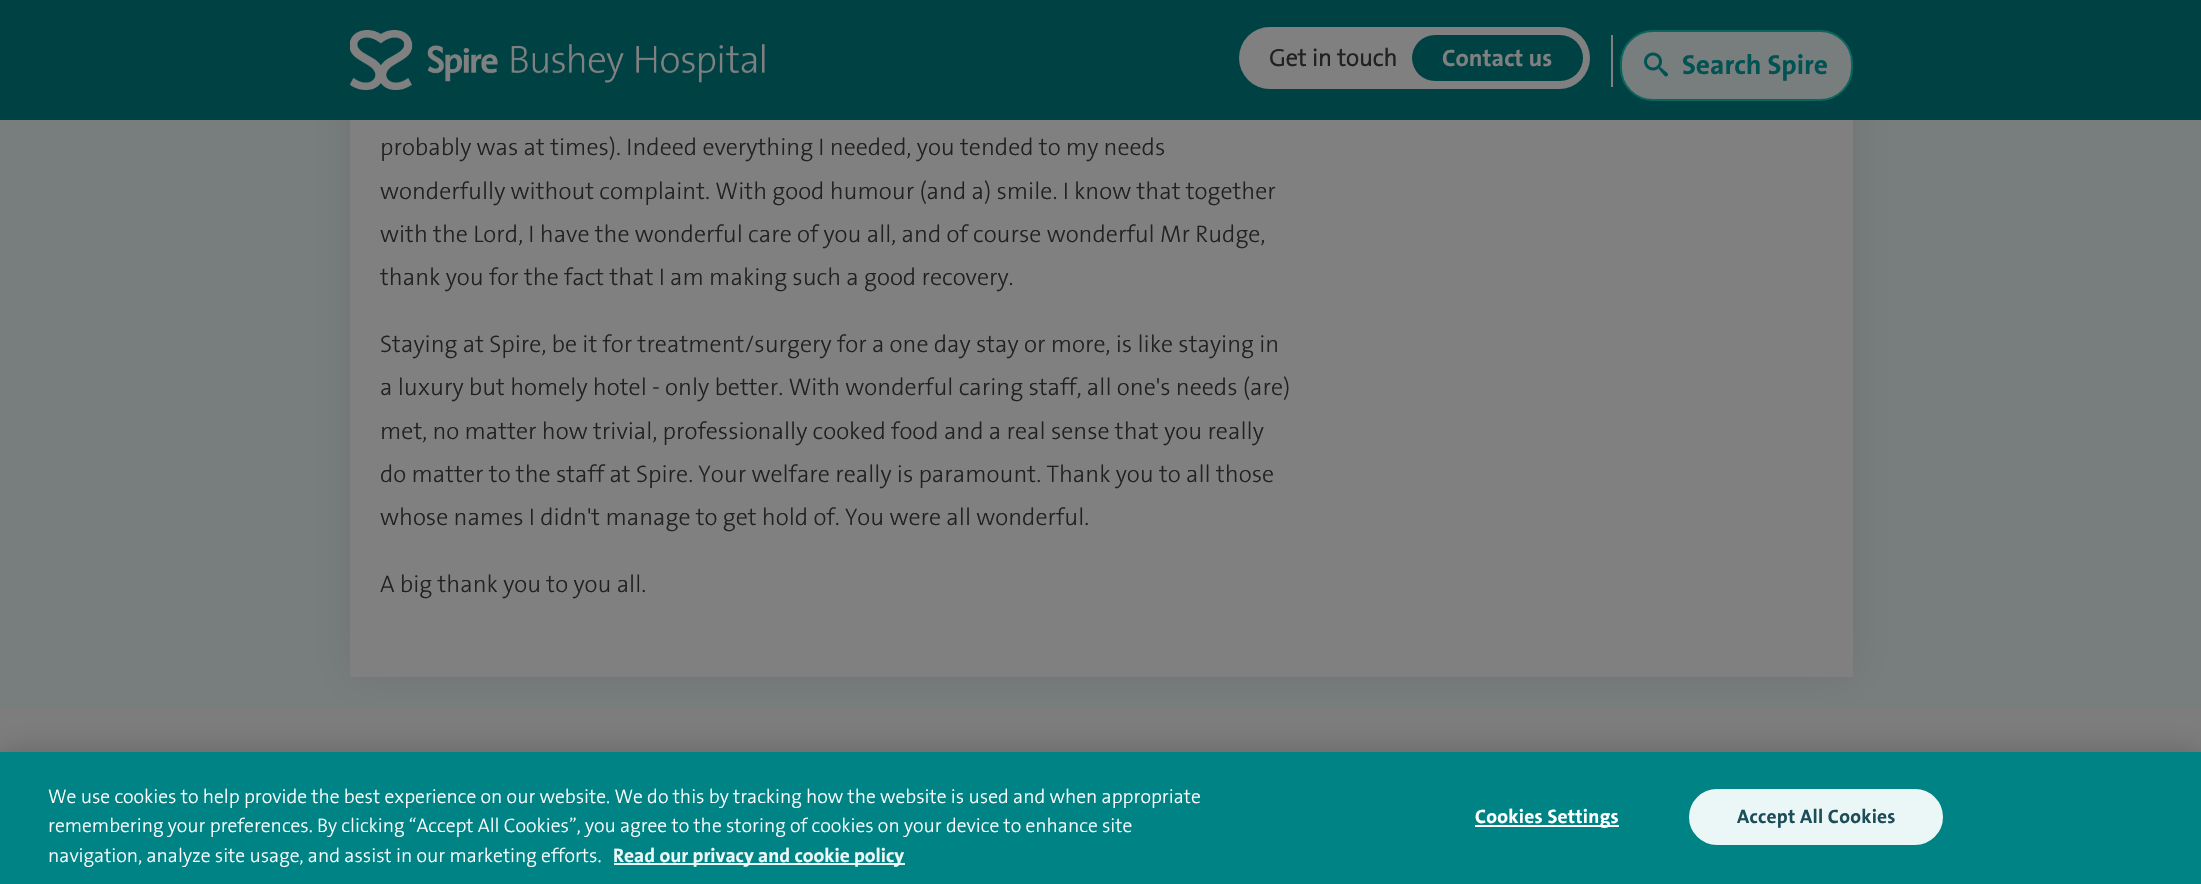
#include "include/core/SkBlurTypes.h"
#include "include/core/SkCanvas.h"
#include "include/core/SkData.h"
#include "include/core/SkFont.h"
#include "include/core/SkFontMgr.h"
#include "include/core/SkImage.h"
#include "include/core/SkMaskFilter.h"
#include "include/core/SkPaint.h"
#include "include/core/SkPathBuilder.h"
#include "include/core/SkTextBlob.h"
#include "include/effects/SkDashPathEffect.h"
#include "include/effects/SkGradientShader.h"
#include "include/utils/SkParsePath.h"

extern sk_sp<SkFontMgr> fontMgr;

static SkFont font(const char* family, int weight, float size, bool italic = false) {
    SkFontStyle style(weight, SkFontStyle::kNormal_Width,
        italic ? SkFontStyle::kItalic_Slant : SkFontStyle::kUpright_Slant);
    SkFont result(fontMgr->matchFamilyStyle(family, style), size);
    result.setSubpixel(true);
    return result;
}

static void drawLabel(SkCanvas* canvas, const char* s, float x, float y, const SkFont& font, SkColor color) {
    SkPaint ink(SkColor4f::FromColor(color));
    ink.setAntiAlias(true);
    canvas->drawString(s, x, y, font, ink);
}

static void drawTracked(SkCanvas* canvas, const char* s, float x, float y, const SkFont& font, const SkPaint& ink, float letter, float word) {
    std::vector<SkGlyphID> glyphs(font.countText(s, strlen(s), SkTextEncoding::kUTF8));
    std::vector<float> xs(glyphs.size());
    font.textToGlyphs(s, strlen(s), SkTextEncoding::kUTF8, glyphs);
    font.getXPos(glyphs, xs, x);
    float extra = 0;
    for (size_t i = 0; i < glyphs.size(); i++) {
        xs[i] += extra;
        extra += letter + word * (glyphs[i] == font.unicharToGlyph(' '));
    }
    canvas->drawTextBlob(SkTextBlob::MakeFromPosHGlyphs(glyphs, xs, y, font), 0, 0, ink);
}

static void fillRect(SkCanvas* canvas, float x, float y, float w, float h, SkColor color) {
    SkPaint ink(SkColor4f::FromColor(color));
    ink.setAntiAlias(true);
    canvas->drawRect(SkRect::MakeXYWH(x, y, w, h), ink);
}

static void fillRRect(SkCanvas* canvas, float x, float y, float w, float h, float radius, SkColor color) {
    SkPaint ink(SkColor4f::FromColor(color));
    ink.setAntiAlias(true);
    canvas->drawRoundRect(SkRect::MakeXYWH(x, y, w, h), radius, radius, ink);
}

static void drawPhoto(SkCanvas* canvas, const char* path, float x, float y, float w, float h) {
    auto image = SkImages::DeferredFromEncodedData(SkData::MakeFromFileName(path));
    canvas->drawImageRect(image, SkRect::MakeXYWH(x, y, w, h), SkSamplingOptions());
}

void draw(SkCanvas* canvas) {
    SkPaint paint;
    paint.setAntiAlias(true);
    canvas->clear(0xFF787D7D);
    paint.setColor(0x14000000);
    paint.setMaskFilter(SkMaskFilter::MakeBlur(kNormal_SkBlurStyle, 21));
    canvas->drawRect(SkRect::MakeXYWH(350, -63, 1503, 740), paint);
    paint.setMaskFilter(nullptr);
    fillRect(canvas, 0, 0, 2201, 120, 0xFF004243);
    drawPhoto(canvas, "assets/img1.png", 350, 30, 415, 60);
    fillRRect(canvas, 1239, 27, 351, 62, 31, 0xFF808080);
    SkFont font1 = font("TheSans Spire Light", 700, 24);
    drawLabel(canvas, "Get in touch", 1269, 66, font1, 0xFF212123);
    fillRRect(canvas, 1412, 35, 171, 46, 23, 0xFF004243);
    SkFont font2 = font("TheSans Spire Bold", 700, 24);
    drawLabel(canvas, "Contact us", 1442, 66, font2, 0xFF808080);
    fillRect(canvas, 1611, 35, 2, 52, 0xFF808080);
    paint.setColor(0xFF787D7D);
    canvas->drawRoundRect(SkRect::MakeXYWH(1621, 31, 231, 69), 32, 32, paint);
    paint.setStroke(true);
    paint.setStrokeWidth(2);
    paint.setColor(0xFF0B665E);
    canvas->drawRoundRect(SkRect::MakeXYWH(1621, 31, 231, 69), 32, 32, paint);
    drawPhoto(canvas, "assets/img2.png", 1644, 52, 24, 25);
    SkFont font3 = font("TheSans Spire Bold", 700, 27.5f);
    drawLabel(canvas, "Search Spire", 1682, 74, font3, 0xFF005253);
    fillRect(canvas, 350, 120, 1503, 557, 0xFF808080);
    SkFont font4 = font("TheSans Spire Light", 300, 24);
    drawLabel(canvas, "probably was at times). Indeed everything I needed, you tended to my needs", 380, 155, font4, 0xFF212123);
    drawLabel(canvas, "wonderfully without complaint. With good humour (and a) smile. I know that together", 380, 199, font4, 0xFF212123);
    drawLabel(canvas, "with the Lord, I have the wonderful care of you all, and of course wonderful Mr Rudge,", 380, 242, font4, 0xFF212123);
    drawLabel(canvas, "thank you for the fact that I am making such a good recovery.", 380, 285, font4, 0xFF212123);
    drawLabel(canvas, "Staying at Spire, be it for treatment/surgery for a one day stay or more, is like staying in", 380, 352, font4, 0xFF212123);
    drawLabel(canvas, "a luxury but homely hotel - only better. With wonderful caring staff, all one's needs (are)", 380, 395, font4, 0xFF212123);
    drawLabel(canvas, "met, no matter how trivial, professionally cooked food and a real sense that you really", 380, 439, font4, 0xFF212123);
    drawLabel(canvas, "do matter to the staff at Spire. Your welfare really is paramount. Thank you to all those", 380, 482, font4, 0xFF212123);
    drawLabel(canvas, "whose names I didn't manage to get hold of. You were all wonderful.", 380, 525, font4, 0xFF212123);
    drawLabel(canvas, "A big thank you to you all.", 380, 592, font4, 0xFF212123);
    fillRect(canvas, 0, 707, 2201, 45, 0xFF7D7D7D);
    paint.setStroke(false);
    paint.setColor(0x33000000);
    paint.setMaskFilter(SkMaskFilter::MakeBlur(kNormal_SkBlurStyle, 13.5f));
    canvas->drawRect(SkRect::MakeXYWH(0, 752, 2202, 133), paint);
    paint.setMaskFilter(nullptr);
    fillRect(canvas, 0, 752, 2201, 132, 0xFF008385);
    SkFont font5 = font("TheSans Spire Light", 300, 19.5f);
    drawLabel(canvas, "We use cookies to help provide the best experience on our website. We do this by tracking how the website is used and when appropriate", 48, 803, font5, 0xFFFFFFFF);
    drawLabel(canvas, "remembering your preferences. By clicking “Accept All Cookies”, you agree to the storing of cookies on your device to enhance site", 48, 832, font5, 0xFFFFFFFF);
    drawLabel(canvas, "navigation, analyze site usage, and assist in our marketing efforts.", 48, 862, font5, 0xFFFFFFFF);
    fillRect(canvas, 614, 863, 291, 2, 0xFFEBF7F7);
    SkFont font6 = font("TheSans Spire Bold", 700, 19.5f);
    drawLabel(canvas, "Read our privacy and cookie policy", 613, 862, font6, 0xFFEBF7F7);
    fillRect(canvas, 1475, 825, 144, 2, 0xFFFFFFFF);
    paint.setColor(0xFFFFFFFF);
    drawTracked(canvas, "Cookies Settings", 1475, 823, font6, paint, 0.25f, 0);
    paint.setColor(0xFFEBF7F7);
    canvas->drawRoundRect(SkRect::MakeXYWH(1690, 790, 252, 54), 27, 27, paint);
    paint.setStroke(true);
    canvas->drawRoundRect(SkRect::MakeXYWH(1690, 790, 252, 54), 27, 27, paint);
    paint.setStroke(false);
    paint.setColor(0xFF1D4D58);
    drawTracked(canvas, "Accept All Cookies", 1737, 823, font6, paint, 0.25f, 0);
}
